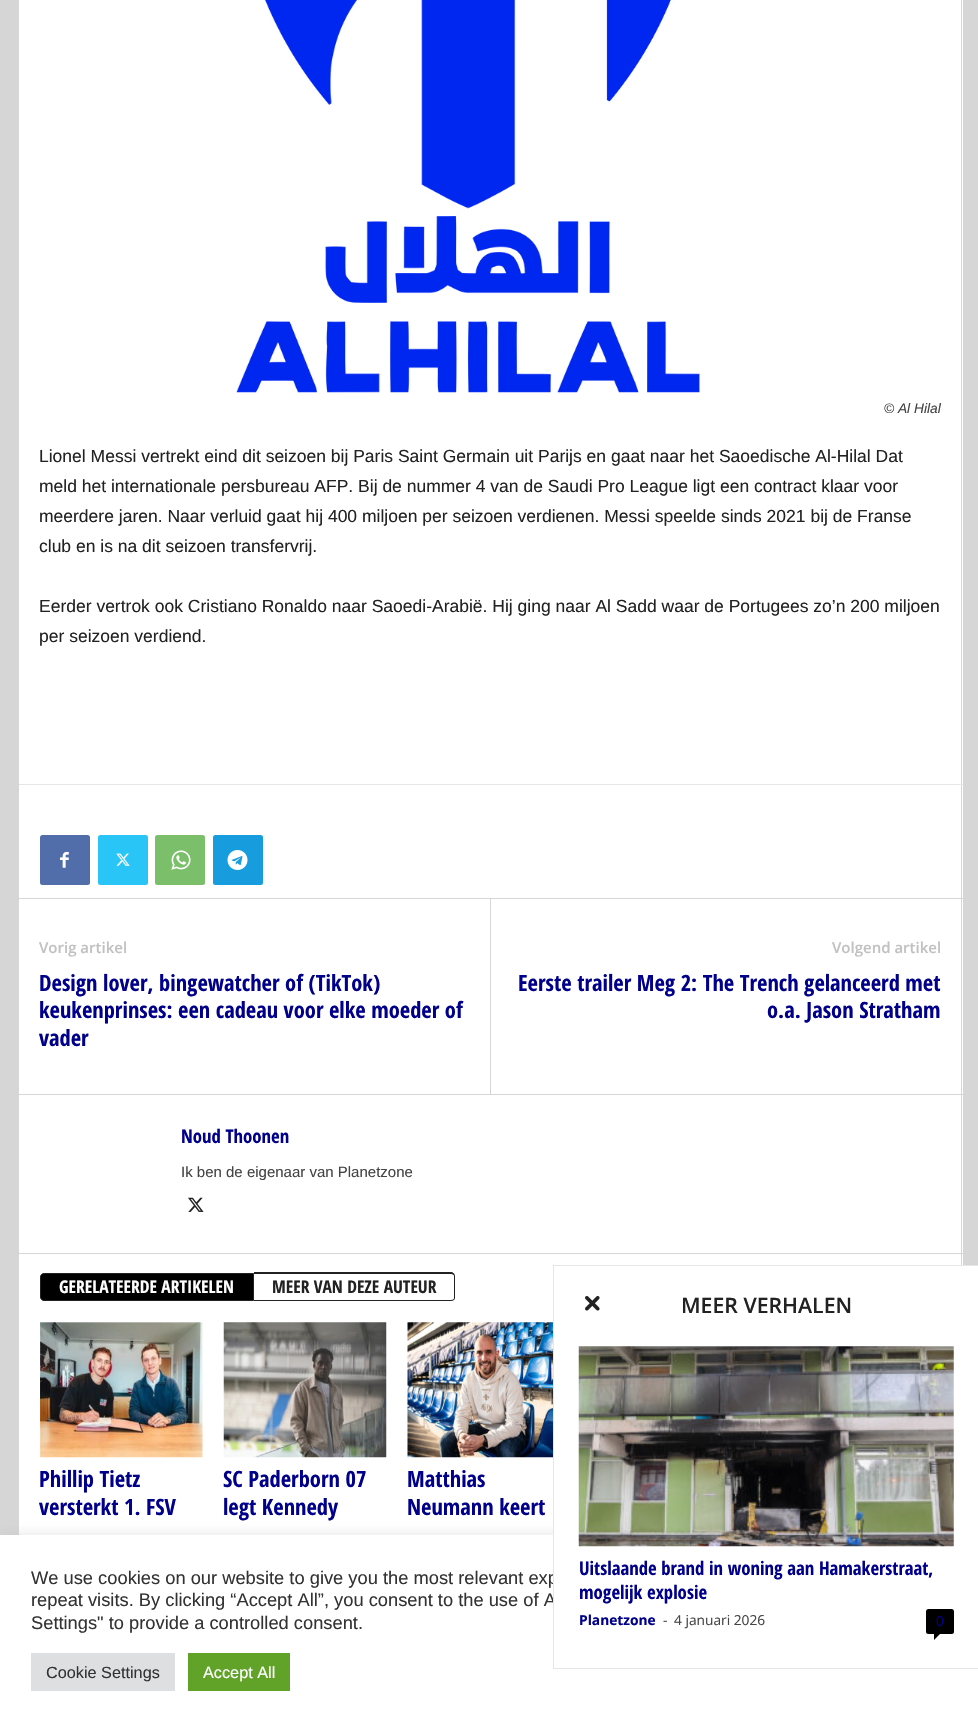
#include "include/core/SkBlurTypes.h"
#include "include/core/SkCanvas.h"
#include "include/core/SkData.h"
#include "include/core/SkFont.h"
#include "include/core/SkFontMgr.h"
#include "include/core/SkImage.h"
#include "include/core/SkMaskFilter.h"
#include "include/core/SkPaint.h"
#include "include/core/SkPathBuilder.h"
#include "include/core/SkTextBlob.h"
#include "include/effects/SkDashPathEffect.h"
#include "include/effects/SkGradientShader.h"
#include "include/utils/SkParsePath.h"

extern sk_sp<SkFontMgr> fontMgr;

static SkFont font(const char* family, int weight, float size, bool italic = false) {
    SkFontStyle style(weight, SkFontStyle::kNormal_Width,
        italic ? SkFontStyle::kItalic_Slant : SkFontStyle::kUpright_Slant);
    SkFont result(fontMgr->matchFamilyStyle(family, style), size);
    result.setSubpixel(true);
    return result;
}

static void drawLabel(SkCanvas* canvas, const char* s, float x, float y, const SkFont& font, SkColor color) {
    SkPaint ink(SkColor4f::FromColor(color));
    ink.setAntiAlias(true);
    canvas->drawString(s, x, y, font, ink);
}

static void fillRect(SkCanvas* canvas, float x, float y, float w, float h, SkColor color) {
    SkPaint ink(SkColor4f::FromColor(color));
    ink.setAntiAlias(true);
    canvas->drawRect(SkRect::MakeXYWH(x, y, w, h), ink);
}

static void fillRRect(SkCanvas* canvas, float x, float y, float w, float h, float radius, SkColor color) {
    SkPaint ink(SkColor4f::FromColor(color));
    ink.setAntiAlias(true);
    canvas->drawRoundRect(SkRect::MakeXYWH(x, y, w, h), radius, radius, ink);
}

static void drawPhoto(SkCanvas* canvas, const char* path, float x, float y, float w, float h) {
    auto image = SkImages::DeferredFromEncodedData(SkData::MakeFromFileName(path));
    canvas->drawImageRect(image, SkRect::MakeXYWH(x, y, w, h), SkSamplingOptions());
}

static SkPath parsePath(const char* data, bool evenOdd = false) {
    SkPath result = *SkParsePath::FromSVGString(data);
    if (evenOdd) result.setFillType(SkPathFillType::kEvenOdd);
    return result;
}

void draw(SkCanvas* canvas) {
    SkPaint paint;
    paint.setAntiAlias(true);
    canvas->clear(0xFFD6D6D6);
    fillRect(canvas, 19, 0, 944, 1535, 0xFFFFFFFF);
    drawPhoto(canvas, "assets/img1.png", 236, 0, 464, 393);
    SkFont font1 = font("Liberation Sans", 400, 13.75f, true);
    drawLabel(canvas, "© Al Hilal", 884, 413, font1, 0xFF444444);
    SkFont font2 = font("Liberation Sans", 400, 17.5f);
    drawLabel(canvas, "Lionel Messi vertrekt eind dit seizoen bij Paris Saint Germain uit Parijs en gaat naar het Saoedische Al-Hilal Dat", 39, 462, font2, 0xFF222222);
    drawLabel(canvas, "meld het internationale persbureau AFP. Bij de nummer 4 van de Saudi Pro League ligt een contract klaar voor", 39, 492, font2, 0xFF222222);
    drawLabel(canvas, "meerdere jaren. Naar verluid gaat hij 400 miljoen per seizoen verdienen. Messi speelde sinds 2021 bij de Franse", 39, 522, font2, 0xFF222222);
    drawLabel(canvas, "club en is na dit seizoen transfervrij.", 39, 552, font2, 0xFF222222);
    drawLabel(canvas, "Eerder vertrok ook Cristiano Ronaldo naar Saoedi-Arabië. Hij ging naar Al Sadd waar de Portugees zo’n 200 miljoen", 39, 612, font2, 0xFF222222);
    drawLabel(canvas, "per seizoen verdiend.", 39, 642, font2, 0xFF222222);
    fillRect(canvas, 961, 0, 1, 1265, 0xFFD6D6D6);
    fillRect(canvas, 19, 784, 944, 1, 0xFFE6E6E6);
    fillRRect(canvas, 40, 835, 50, 50, 2.5f, 0xFF516EAB);
    drawPhoto(canvas, "assets/img2.png", 60, 851, 9, 17);
    fillRRect(canvas, 98, 835, 50, 50, 2.5f, 0xFF29C5F6);
    drawPhoto(canvas, "assets/img3.png", 116, 853, 14, 13);
    fillRRect(canvas, 155, 835, 50, 50, 2.5f, 0xFF7BBF6A);
    drawPhoto(canvas, "assets/img4.png", 171, 850, 20, 20);
    fillRRect(canvas, 213, 835, 50, 50, 2.5f, 0xFF179CDE);
    drawPhoto(canvas, "assets/img5.png", 227, 850, 21, 20);
    fillRect(canvas, 19, 898, 944, 1, 0xFFD6D6D6);
    SkFont font3 = font("Open Sans", 600, 15);
    drawLabel(canvas, "Vorig artikel", 39, 953, font3, 0xFFC1C1C1);
    SkFont font4 = font("Open Sans Condensed", 700, 22.5f);
    drawLabel(canvas, "Design lover, bingewatcher of (TikTok)", 39, 991, font4, 0xFF00008B);
    drawLabel(canvas, "keukenprinses: een cadeau voor elke moeder of", 39, 1018, font4, 0xFF00008B);
    drawLabel(canvas, "vader", 39, 1046, font4, 0xFF00008B);
    fillRect(canvas, 490, 899, 1, 195, 0xFFD6D6D6);
    drawLabel(canvas, "Volgend artikel", 832, 953, font3, 0xFFC1C1C1);
    drawLabel(canvas, "Eerste trailer Meg 2: The Trench gelanceerd met", 518, 991, font4, 0xFF00008B);
    drawLabel(canvas, "o.a. Jason Stratham", 767, 1018, font4, 0xFF00008B);
    fillRect(canvas, 19, 1094, 944, 1, 0xFFD6D6D6);
    SkFont font5 = font("Open Sans Condensed", 700, 18.75f);
    drawLabel(canvas, "Noud Thoonen", 181, 1143, font5, 0xFF00008B);
    SkFont font6 = font("Liberation Sans", 400, 15);
    drawLabel(canvas, "Ik ben de eigenaar van Planetzone", 181, 1177, font6, 0xFF444444);
    drawPhoto(canvas, "assets/img6.png", 188, 1197, 16, 15);
    fillRect(canvas, 19, 1253, 944, 1, 0xFFD6D6D6);
    paint.setColor(0xFF000000);
    canvas->drawPath(parsePath("M44 1273.5H253.5V1300.5H44C42 1300.5 40.5 1299 40.5 1297V1277C40.5 1275 42 1273.5 44 1273.5Z"), paint);
    paint.setStroke(true);
    paint.setStrokeWidth(1);
    paint.setColor(0xFF222222);
    canvas->drawPath(parsePath("M44 1273.5H253.5V1300.5H44C42 1300.5 40.5 1299 40.5 1297V1277C40.5 1275 42 1273.5 44 1273.5Z"), paint);
    SkFont font7 = font("Open Sans Condensed", 700, 17.5f);
    drawLabel(canvas, "GERELATEERDE ARTIKELEN", 59, 1293, font7, 0xFFFFFFFF);
    paint.setStroke(false);
    canvas->drawPath(parsePath("M254 1272H451C453 1272 455 1274 455 1276V1298C455 1300 453 1301 451 1301H254ZM254 1274H451C453 1274 454 1275 454 1276V1298C454 1299 453 1300 451 1300H254Z", true), paint);
    drawLabel(canvas, "MEER VAN DEZE AUTEUR", 272, 1293, font7, 0xFF222222);
    drawPhoto(canvas, "assets/img7.png", 40, 1322, 163, 136);
    drawLabel(canvas, "Phillip Tietz", 39, 1487, font4, 0xFF00008B);
    drawLabel(canvas, "versterkt 1. FSV", 39, 1515, font4, 0xFF00008B);
    drawPhoto(canvas, "assets/img8.png", 223, 1322, 164, 136);
    drawLabel(canvas, "SC Paderborn 07", 223, 1487, font4, 0xFF00008B);
    drawLabel(canvas, "legt Kennedy", 223, 1515, font4, 0xFF00008B);
    drawPhoto(canvas, "assets/img9.png", 407, 1322, 146, 136);
    drawLabel(canvas, "Matthias", 407, 1487, font4, 0xFF00008B);
    drawLabel(canvas, "Neumann keert", 407, 1515, font4, 0xFF00008B);
    paint.setColor(0x4DACABAB);
    paint.setMaskFilter(SkMaskFilter::MakeBlur(kNormal_SkBlurStyle, 6));
    canvas->drawRect(SkRect::MakeXYWH(0, 1534, 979, 194), paint);
    paint.setMaskFilter(nullptr);
    fillRect(canvas, 0, 1535, 978, 193, 0xFFFFFFFF);
    SkFont font8 = font("Liberation Sans", 400, 18.3f);
    drawLabel(canvas, "We use cookies on our website to give you the most relevant exp", 31, 1584, font8, 0xFF333333);
    drawLabel(canvas, "repeat visits. By clicking “Accept All”, you consent to the use of A", 31, 1606, font8, 0xFF333333);
    drawLabel(canvas, "Settings\" to provide a controlled consent.", 31, 1629, font8, 0xFF333333);
    fillRect(canvas, 31, 1653, 144, 38, 0xFFDEDFE0);
    SkFont font9 = font("Liberation Sans", 400, 16.25f);
    drawLabel(canvas, "Cookie Settings", 46, 1678, font9, 0xFF333333);
    fillRect(canvas, 188, 1653, 102, 38, 0xFF61A229);
    drawLabel(canvas, "Accept All", 203, 1678, font9, 0xFFFFFFFF);
    fillRect(canvas, 554, 1266, 424, 340, 0xFFFFFFFF);
    fillRect(canvas, 553, 1265, 425, 1, 0xFFE6E6E6);
    fillRect(canvas, 553, 1668, 425, 1, 0xFFE6E6E6);
    fillRect(canvas, 553, 1265, 1, 404, 0xFFE6E6E6);
    drawPhoto(canvas, "assets/img10.png", 585, 1296, 15, 15);
    SkFont font10 = font("Open Sans", 600, 21.25f);
    drawLabel(canvas, "MEER VERHALEN", 681, 1313, font10, 0xFF222222);
    drawPhoto(canvas, "assets/img11.png", 578, 1346, 376, 201);
    drawLabel(canvas, "Uitslaande brand in woning aan Hamakerstraat,", 579, 1575, font5, 0xFF00008B);
    drawLabel(canvas, "mogelijk explosie", 579, 1599, font5, 0xFF00008B);
    SkFont font11 = font("Open Sans", 700, 13.75f);
    drawLabel(canvas, "Planetzone", 579, 1625, font11, 0xFF00008B);
    SkFont font12 = font("Open Sans", 400, 13.75f);
    drawLabel(canvas, "-", 663, 1625, font12, 0xFF444444);
    drawLabel(canvas, "4 januari 2026", 674, 1625, font12, 0xFF444444);
    fillRRect(canvas, 926, 1609, 28, 25, 2.5f, 0xFF000000);
    drawLabel(canvas, "0", 936, 1626, font12, 0xFF00008B);
    paint.setColor(0xFF000000);
    canvas->drawPath(parsePath("M934 1634H940L934 1640Z"), paint);
}
